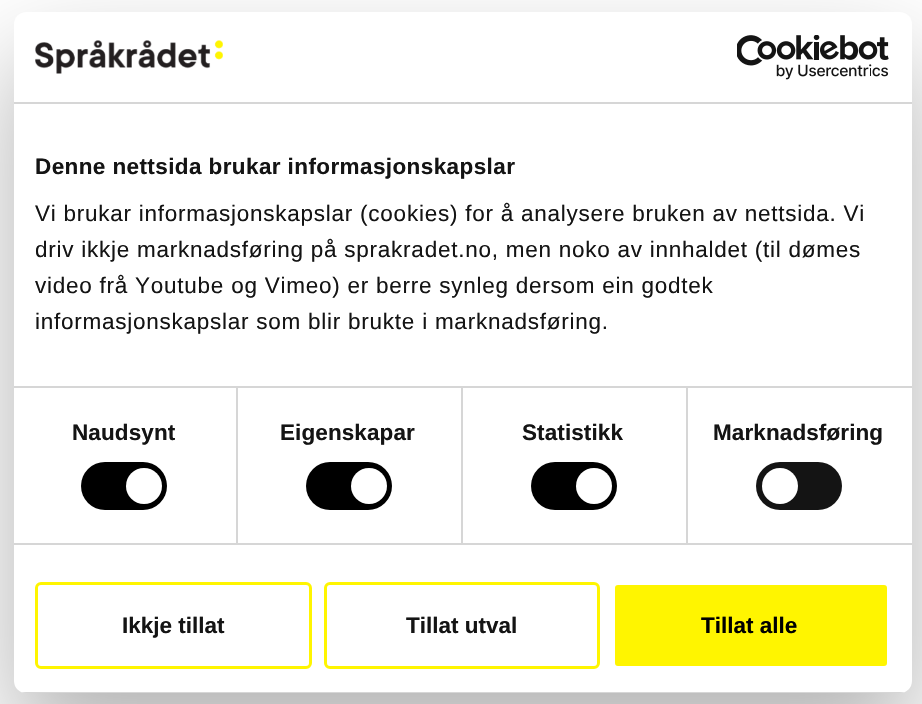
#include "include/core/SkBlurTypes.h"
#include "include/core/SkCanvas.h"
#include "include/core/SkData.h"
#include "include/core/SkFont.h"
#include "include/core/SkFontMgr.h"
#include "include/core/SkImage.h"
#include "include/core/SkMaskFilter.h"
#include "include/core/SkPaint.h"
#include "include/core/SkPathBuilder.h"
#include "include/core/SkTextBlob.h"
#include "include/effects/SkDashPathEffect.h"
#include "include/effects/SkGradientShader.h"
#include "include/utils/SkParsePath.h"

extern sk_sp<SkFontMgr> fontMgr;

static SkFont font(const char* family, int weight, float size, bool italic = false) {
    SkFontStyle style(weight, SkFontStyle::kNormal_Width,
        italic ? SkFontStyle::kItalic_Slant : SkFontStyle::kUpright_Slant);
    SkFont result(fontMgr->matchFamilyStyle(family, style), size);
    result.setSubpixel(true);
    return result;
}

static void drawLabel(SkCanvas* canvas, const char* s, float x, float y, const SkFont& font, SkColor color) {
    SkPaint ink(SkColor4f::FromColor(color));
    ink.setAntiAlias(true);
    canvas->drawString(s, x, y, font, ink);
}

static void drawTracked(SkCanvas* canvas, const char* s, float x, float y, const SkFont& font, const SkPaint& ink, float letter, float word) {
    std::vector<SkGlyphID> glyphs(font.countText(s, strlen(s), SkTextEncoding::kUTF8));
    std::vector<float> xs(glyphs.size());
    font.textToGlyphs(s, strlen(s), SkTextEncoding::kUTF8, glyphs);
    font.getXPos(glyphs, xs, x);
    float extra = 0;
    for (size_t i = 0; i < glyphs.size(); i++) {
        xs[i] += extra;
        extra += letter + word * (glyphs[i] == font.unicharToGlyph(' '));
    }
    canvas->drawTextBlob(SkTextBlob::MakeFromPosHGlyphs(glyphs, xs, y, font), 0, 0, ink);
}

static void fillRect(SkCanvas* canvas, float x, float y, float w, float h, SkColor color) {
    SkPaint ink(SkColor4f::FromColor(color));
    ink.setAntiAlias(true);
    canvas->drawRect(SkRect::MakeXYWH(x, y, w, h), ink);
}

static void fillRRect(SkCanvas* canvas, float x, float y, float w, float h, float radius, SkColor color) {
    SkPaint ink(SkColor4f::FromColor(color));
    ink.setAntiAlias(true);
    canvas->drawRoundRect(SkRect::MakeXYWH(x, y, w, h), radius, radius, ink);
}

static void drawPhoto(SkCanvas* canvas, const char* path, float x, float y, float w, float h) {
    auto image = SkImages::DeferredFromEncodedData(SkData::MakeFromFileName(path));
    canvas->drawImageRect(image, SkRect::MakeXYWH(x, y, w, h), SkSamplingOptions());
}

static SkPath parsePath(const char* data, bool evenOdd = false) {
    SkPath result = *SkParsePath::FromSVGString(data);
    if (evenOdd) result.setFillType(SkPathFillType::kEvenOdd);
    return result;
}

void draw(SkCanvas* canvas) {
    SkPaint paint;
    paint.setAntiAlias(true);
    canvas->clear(0xFFFFFFFF);
    paint.setColor(0x4D000000);
    paint.setMaskFilter(SkMaskFilter::MakeBlur(kNormal_SkBlurStyle, 51));
    canvas->drawRoundRect(SkRect::MakeXYWH(14, 60, 898, 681), 12, 12, paint);
    paint.setMaskFilter(nullptr);
    fillRRect(canvas, 14, 12, 898, 681, 12, 0xFFFFFFFF);
    fillRect(canvas, 14, 102, 898, 2, 0xFFD6D6D6);
    drawPhoto(canvas, "assets/img1.png", 35, 40, 188, 34);
    drawPhoto(canvas, "assets/img2.png", 737, 35, 152, 45);
    fillRect(canvas, 236, 387, 2, 156, 0xFFD6D6D6);
    fillRect(canvas, 461, 387, 2, 156, 0xFFD6D6D6);
    fillRect(canvas, 686, 387, 2, 156, 0xFFD6D6D6);
    fillRect(canvas, 14, 386, 898, 2, 0xFFD6D6D6);
    SkFont font1 = font("Liberation Sans", 700, 22.5f);
    paint.setColor(0xFF141414);
    drawTracked(canvas, "Denne nettsida brukar informasjonskapslar", 35, 174, font1, paint, 0.4f, 0);
    SkFont font2 = font("Liberation Sans", 400, 22.5f);
    drawTracked(canvas, "Vi brukar informasjonskapslar (cookies) for å analysere bruken av nettsida. Vi", 35, 221, font2, paint, 0.75f, 0);
    drawTracked(canvas, "driv ikkje marknadsføring på sprakradet.no, men noko av innhaldet (til dømes", 35, 257, font2, paint, 0.75f, 0);
    drawTracked(canvas, "video frå Youtube og Vimeo) er berre synleg dersom ein godtek", 35, 293, font2, paint, 0.75f, 0);
    drawTracked(canvas, "informasjonskapslar som blir brukte i marknadsføring.", 35, 329, font2, paint, 0.75f, 0);
    fillRect(canvas, 14, 543, 898, 2, 0xFFD6D6D6);
    drawTracked(canvas, "Naudsynt", 72, 440, font1, paint, 0.1f, 0);
    fillRRect(canvas, 81, 462, 86, 48, 24, 0xFF000000);
    paint.setColor(0xFFFFFFFF);
    canvas->drawCircle(144, 486, 18, paint);
    paint.setColor(0xFF141414);
    drawTracked(canvas, "Eigenskapar", 280, 440, font1, paint, 0.1f, 0);
    fillRRect(canvas, 306, 462, 86, 48, 24, 0xFF000000);
    paint.setColor(0xFFFFFFFF);
    canvas->drawCircle(369, 486, 18, paint);
    paint.setColor(0xFF141414);
    drawTracked(canvas, "Statistikk", 522, 440, font1, paint, 0.1f, 0);
    fillRRect(canvas, 531, 462, 86, 48, 24, 0xFF000000);
    paint.setColor(0xFFFFFFFF);
    canvas->drawCircle(594, 486, 18, paint);
    paint.setColor(0xFF141414);
    drawTracked(canvas, "Marknadsføring", 713, 440, font1, paint, 0.1f, 0);
    fillRRect(canvas, 756, 462, 86, 48, 24, 0xFF141414);
    paint.setColor(0xFFFFFFFF);
    canvas->drawCircle(780, 486, 18, paint);
    canvas->save();
    canvas->clipPath(parsePath("M26 12H900C906.5 12 912 17.5 912 24V681C912 687.5 906.5 693 900 693H26C19.5 693 14 687.5 14 681V24C14 17.5 19.5 12 26 12Z"), true);
    fillRect(canvas, 14, 692, 898, 1, 0xFFD6D6D6);
    canvas->restore();
    paint.setStroke(true);
    paint.setStrokeWidth(3);
    paint.setColor(0xFFFFF500);
    canvas->drawRoundRect(SkRect::MakeXYWH(36.5f, 583.5f, 274, 84), 4.5f, 4.5f, paint);
    drawLabel(canvas, "Ikkje tillat", 122, 633, font1, 0xFF141414);
    canvas->drawRoundRect(SkRect::MakeXYWH(325.5f, 583.5f, 273, 84), 4.5f, 4.5f, paint);
    drawLabel(canvas, "Tillat utval", 406, 633, font1, 0xFF141414);
    paint.setStroke(false);
    canvas->drawRoundRect(SkRect::MakeXYWH(613.5f, 583.5f, 275, 84), 4.5f, 4.5f, paint);
    paint.setStroke(true);
    paint.setColor(0xFFFFFFFF);
    canvas->drawRoundRect(SkRect::MakeXYWH(613.5f, 583.5f, 275, 84), 4.5f, 4.5f, paint);
    drawLabel(canvas, "Tillat alle", 701, 633, font1, 0xFF000000);
}
